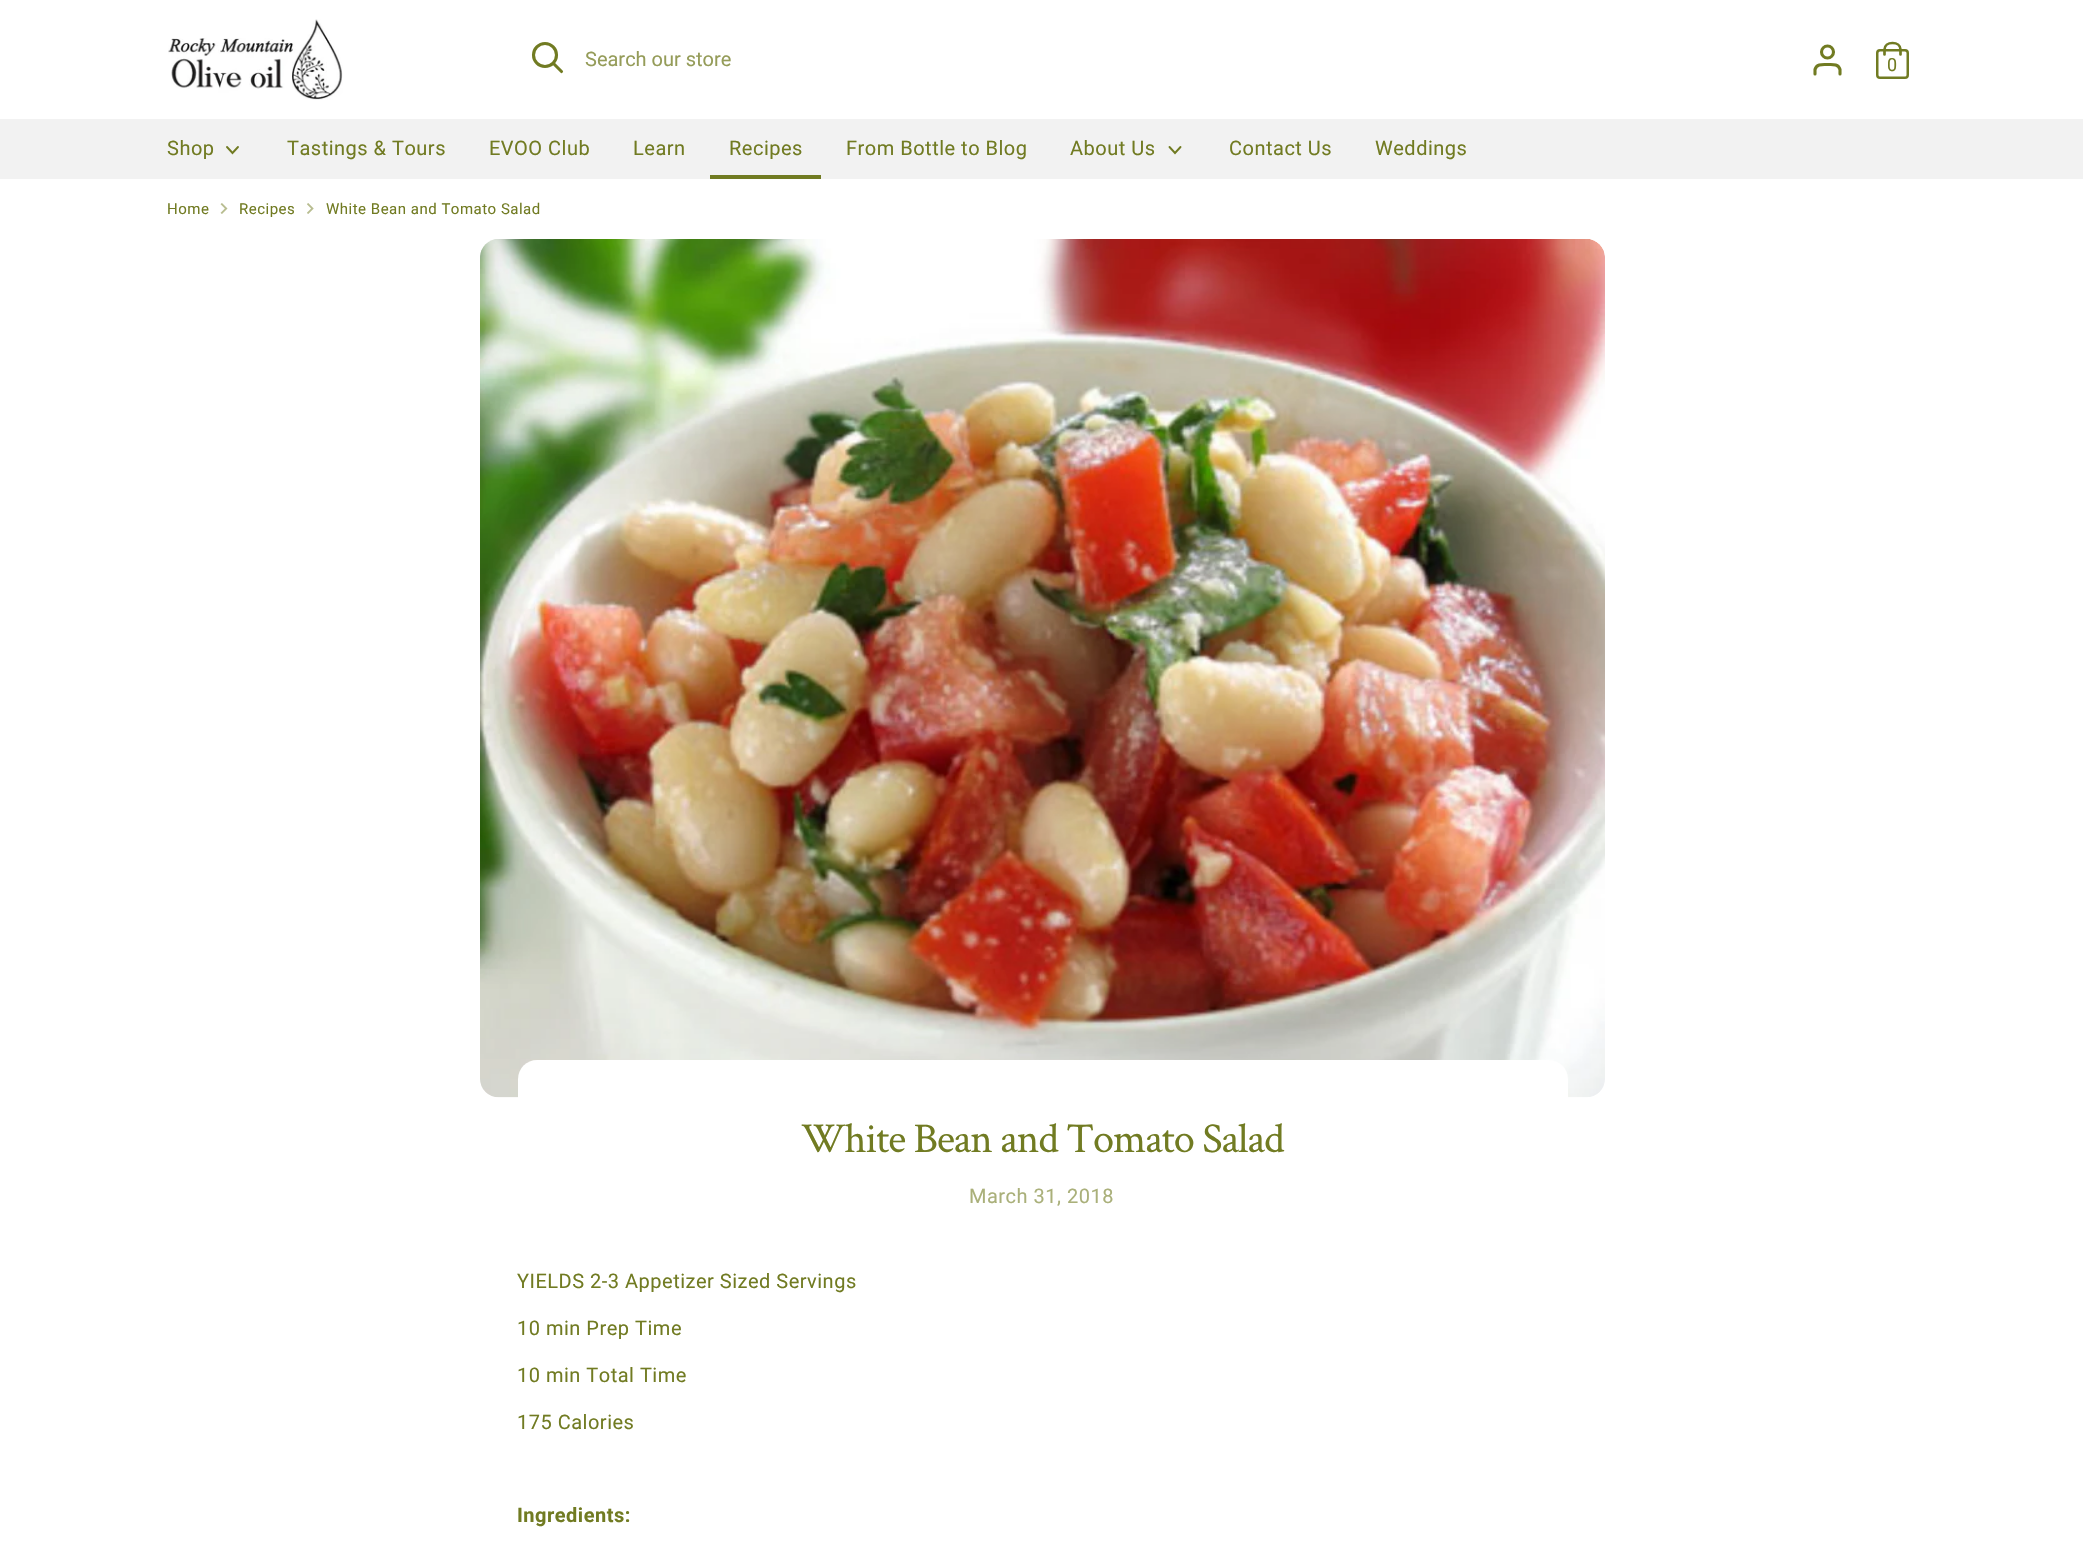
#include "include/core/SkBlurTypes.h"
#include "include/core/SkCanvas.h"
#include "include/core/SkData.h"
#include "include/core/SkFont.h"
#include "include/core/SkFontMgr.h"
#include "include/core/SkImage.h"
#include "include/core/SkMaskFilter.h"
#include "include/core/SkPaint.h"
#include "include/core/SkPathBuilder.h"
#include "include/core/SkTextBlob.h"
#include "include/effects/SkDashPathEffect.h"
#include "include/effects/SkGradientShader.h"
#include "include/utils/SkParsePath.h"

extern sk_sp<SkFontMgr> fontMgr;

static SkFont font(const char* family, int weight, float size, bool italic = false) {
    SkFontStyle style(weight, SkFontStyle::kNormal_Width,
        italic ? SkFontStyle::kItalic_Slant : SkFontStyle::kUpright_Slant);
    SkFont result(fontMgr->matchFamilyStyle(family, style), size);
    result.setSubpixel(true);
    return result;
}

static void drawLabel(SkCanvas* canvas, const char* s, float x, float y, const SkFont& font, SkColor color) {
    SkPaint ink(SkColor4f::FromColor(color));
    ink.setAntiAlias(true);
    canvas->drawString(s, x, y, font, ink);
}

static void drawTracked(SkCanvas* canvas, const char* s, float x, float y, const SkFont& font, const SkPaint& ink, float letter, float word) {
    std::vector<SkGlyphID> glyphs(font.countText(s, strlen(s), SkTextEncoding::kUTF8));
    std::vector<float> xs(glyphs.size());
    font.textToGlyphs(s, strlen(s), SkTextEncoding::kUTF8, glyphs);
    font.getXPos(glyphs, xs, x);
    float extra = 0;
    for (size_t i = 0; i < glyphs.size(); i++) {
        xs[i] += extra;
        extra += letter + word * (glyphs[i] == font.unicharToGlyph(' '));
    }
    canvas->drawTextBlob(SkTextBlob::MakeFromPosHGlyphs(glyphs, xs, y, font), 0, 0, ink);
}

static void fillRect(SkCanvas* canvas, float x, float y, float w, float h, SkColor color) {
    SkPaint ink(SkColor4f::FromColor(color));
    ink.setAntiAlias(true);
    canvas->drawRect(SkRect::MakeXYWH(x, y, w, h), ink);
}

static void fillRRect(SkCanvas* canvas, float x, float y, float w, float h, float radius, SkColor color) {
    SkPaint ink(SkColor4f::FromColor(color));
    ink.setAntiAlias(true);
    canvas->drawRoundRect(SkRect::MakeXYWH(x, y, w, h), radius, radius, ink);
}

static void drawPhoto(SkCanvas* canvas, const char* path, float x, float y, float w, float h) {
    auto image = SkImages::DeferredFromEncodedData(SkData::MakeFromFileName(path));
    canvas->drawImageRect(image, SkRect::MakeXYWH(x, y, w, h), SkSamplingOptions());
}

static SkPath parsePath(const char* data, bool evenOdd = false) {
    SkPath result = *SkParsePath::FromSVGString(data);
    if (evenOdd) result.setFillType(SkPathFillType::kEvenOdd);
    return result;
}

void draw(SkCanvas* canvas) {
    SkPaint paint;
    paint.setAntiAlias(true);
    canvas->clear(0xFFFFFFFF);
    drawPhoto(canvas, "assets/img1.png", 168, 19, 175, 81);
    paint.setStroke(true);
    paint.setStrokeWidth(3.1f);
    paint.setColor(0xFF717B22);
    canvas->drawCircle(545, 55, 11.5f, paint);
    paint.setStrokeCap(SkPaint::kRound_Cap);
    canvas->drawPath(parsePath("M561.5 71.5L553.5 63.5"), paint);
    SkFont font1 = font("Roboto", 400, 20);
    drawLabel(canvas, "Search our store", 585, 66, font1, 0xFF959C59);
    canvas->drawPath(parsePath("M1840 74V69.5C1838.5 63.5 1832 64.5 1827.5 64.5C1823 64.5 1816.5 63.5 1815 69.5V74"), paint);
    paint.setStrokeCap(SkPaint::kButt_Cap);
    canvas->drawCircle(1827.5f, 52, 6, paint);
    paint.setStrokeWidth(2.5f);
    canvas->drawRoundRect(SkRect::MakeXYWH(1877.25f, 50.25f, 30.5f, 27.5f), 2.75f, 2.75f, paint);
    paint.setStrokeWidth(2.7f);
    paint.setStrokeCap(SkPaint::kRound_Cap);
    canvas->drawPath(parsePath("M1884.5 54.5V49.5C1884.5 45.5 1888 43 1892.5 43C1897 43 1900.5 45.5 1900.5 49.5V54.5"), paint);
    SkFont font2 = font("Roboto", 400, 18);
    drawLabel(canvas, "0", 1887, 71, font2, 0xFF717B22);
    fillRect(canvas, 0, 119, 2083, 60, 0xFFF2F2F2);
    paint.setStroke(false);
    drawTracked(canvas, "Shop", 167, 155, font1, paint, 0.5f, 0);
    paint.setStroke(true);
    paint.setStrokeWidth(1.9f);
    canvas->drawPath(parsePath("M227 147L232.5 153L238 147"), paint);
    paint.setStroke(false);
    drawTracked(canvas, "Tastings & Tours", 287, 155, font1, paint, 0.5f, 0);
    drawTracked(canvas, "EVOO Club", 489, 155, font1, paint, 0.5f, 0);
    drawTracked(canvas, "Learn", 633, 155, font1, paint, 0.5f, 0);
    drawTracked(canvas, "Recipes", 729, 155, font1, paint, 0.5f, 0);
    fillRect(canvas, 710, 175, 111, 4, 0xFF717B22);
    drawTracked(canvas, "From Bottle to Blog", 846, 155, font1, paint, 0.5f, 0);
    drawTracked(canvas, "About Us", 1070, 155, font1, paint, 0.5f, 0);
    paint.setStroke(true);
    canvas->drawPath(parsePath("M1169.5 147L1175 153L1180.5 147"), paint);
    paint.setStroke(false);
    drawTracked(canvas, "Contact Us", 1229, 155, font1, paint, 0.5f, 0);
    drawTracked(canvas, "Weddings", 1375, 155, font1, paint, 0.5f, 0);
    SkFont font3 = font("Roboto", 400, 15);
    drawTracked(canvas, "Home", 167, 214, font3, paint, 0.5f, 0);
    drawPhoto(canvas, "assets/img2.png", 220, 203, 8, 11);
    drawTracked(canvas, "Recipes", 239, 214, font3, paint, 0.5f, 0);
    drawPhoto(canvas, "assets/img3.png", 307, 203, 7, 11);
    drawTracked(canvas, "White Bean and Tomato Salad", 326, 214, font3, paint, 0.5f, 0);
    drawPhoto(canvas, "assets/img4.png", 480, 239, 1125, 859);
    fillRRect(canvas, 518, 1060, 1050, 153, 19, 0xFFFFFFFF);
    SkFont font4 = font("Crimson Text", 400, 42.5f);
    drawTracked(canvas, "White Bean and Tomato Salad", 801, 1152, font4, paint, -1.05f, 0);
    paint.setColor(0xFFAAB07A);
    drawTracked(canvas, "March 31, 2018", 969, 1203, font1, paint, 0.5f, 0);
    paint.setColor(0xFF717B22);
    drawTracked(canvas, "YIELDS 2-3 Appetizer Sized Servings", 517, 1288, font1, paint, 0.5f, 0);
    drawTracked(canvas, "10 min Prep Time", 517, 1335, font1, paint, 0.5f, 0);
    drawTracked(canvas, "10 min Total Time", 517, 1382, font1, paint, 0.5f, 0);
    drawTracked(canvas, "175 Calories", 517, 1429, font1, paint, 0.5f, 0);
    SkFont font5 = font("Roboto", 700, 20);
    drawTracked(canvas, "Ingredients:", 517, 1522, font5, paint, 0.5f, 0);
}
